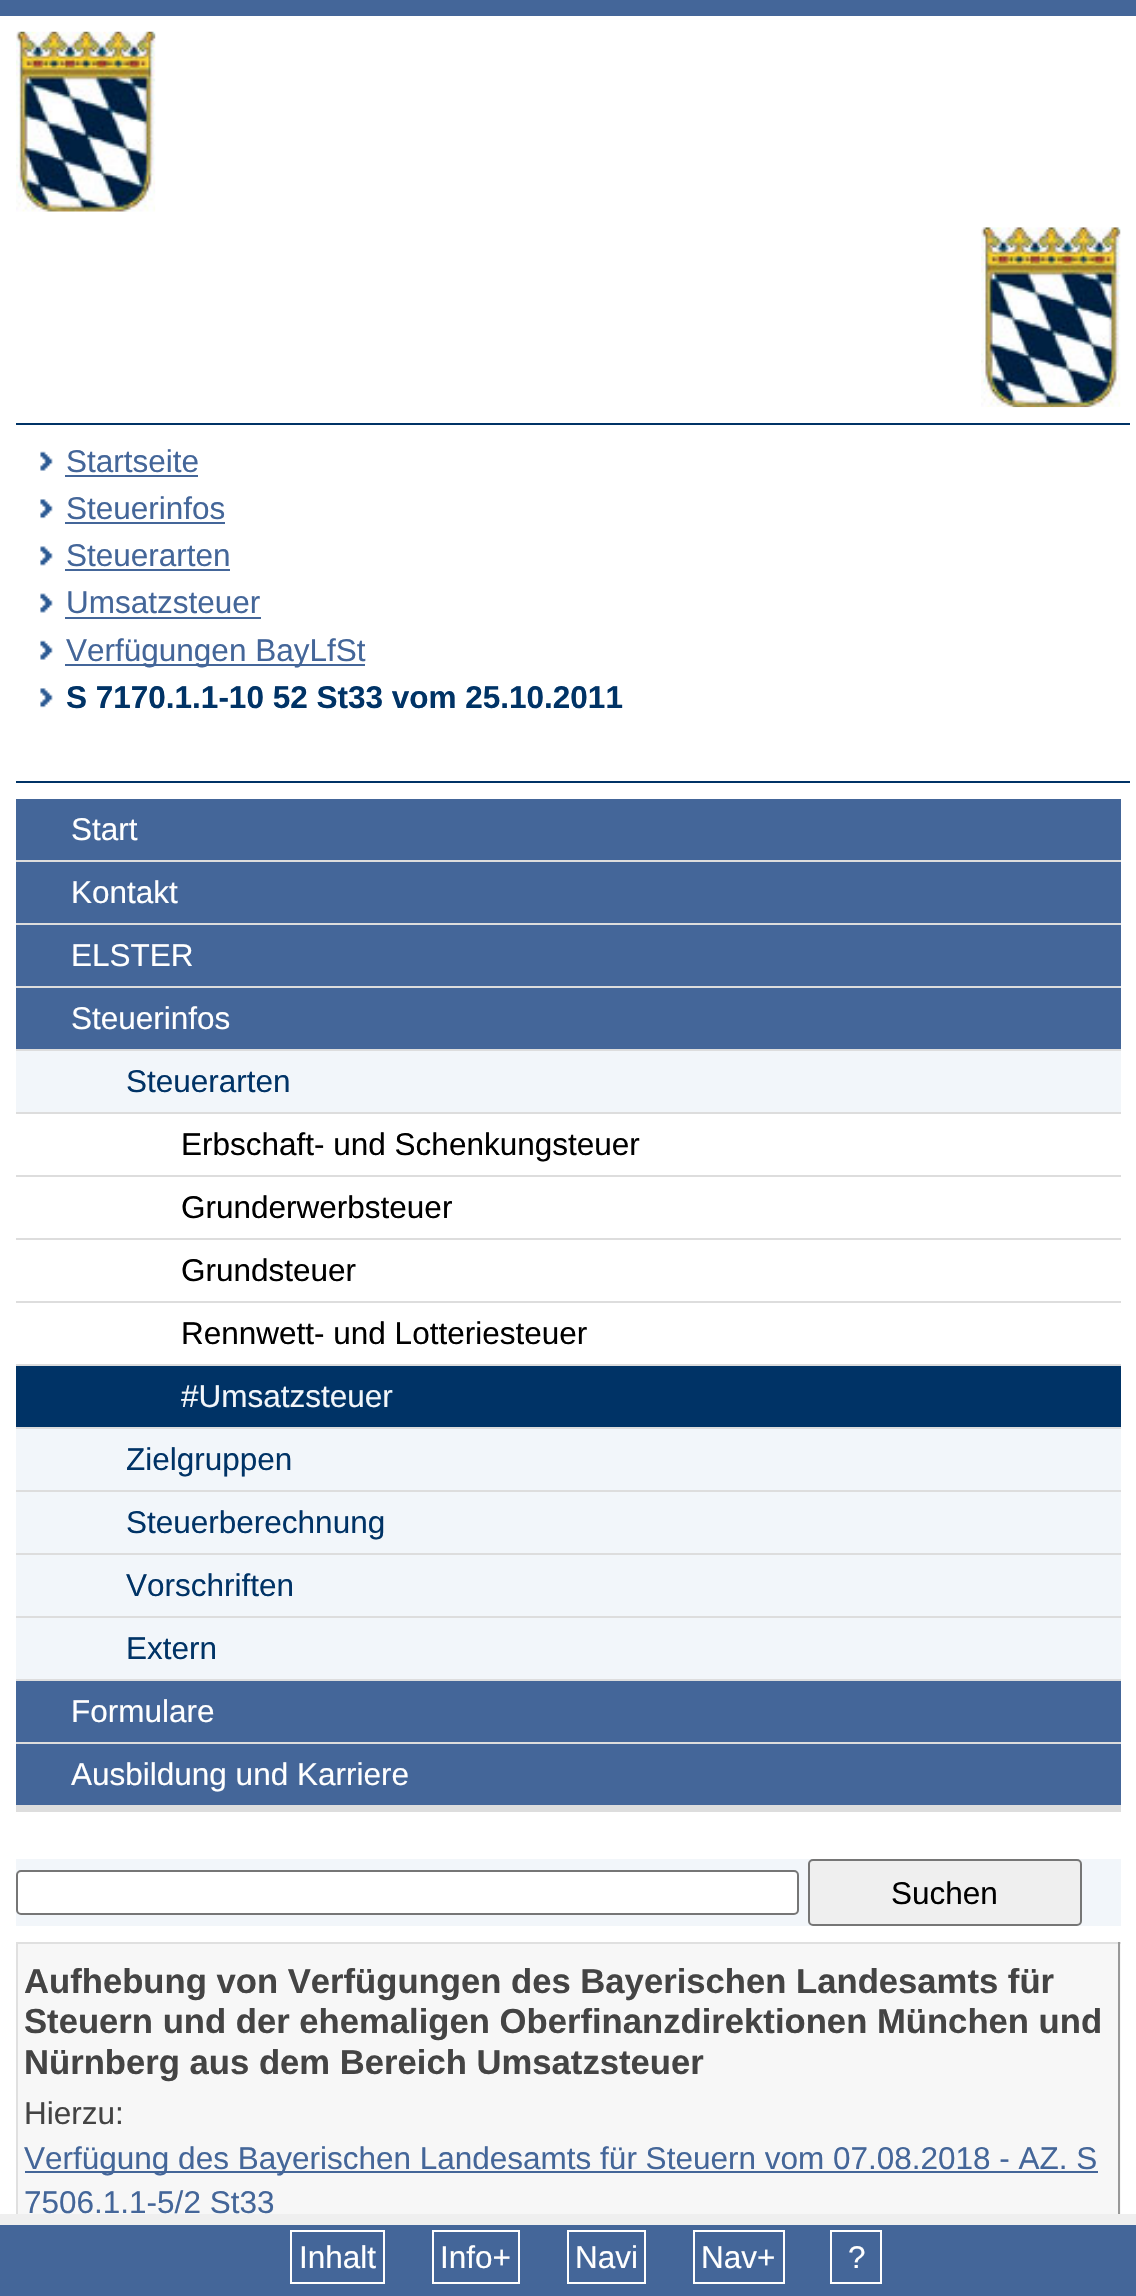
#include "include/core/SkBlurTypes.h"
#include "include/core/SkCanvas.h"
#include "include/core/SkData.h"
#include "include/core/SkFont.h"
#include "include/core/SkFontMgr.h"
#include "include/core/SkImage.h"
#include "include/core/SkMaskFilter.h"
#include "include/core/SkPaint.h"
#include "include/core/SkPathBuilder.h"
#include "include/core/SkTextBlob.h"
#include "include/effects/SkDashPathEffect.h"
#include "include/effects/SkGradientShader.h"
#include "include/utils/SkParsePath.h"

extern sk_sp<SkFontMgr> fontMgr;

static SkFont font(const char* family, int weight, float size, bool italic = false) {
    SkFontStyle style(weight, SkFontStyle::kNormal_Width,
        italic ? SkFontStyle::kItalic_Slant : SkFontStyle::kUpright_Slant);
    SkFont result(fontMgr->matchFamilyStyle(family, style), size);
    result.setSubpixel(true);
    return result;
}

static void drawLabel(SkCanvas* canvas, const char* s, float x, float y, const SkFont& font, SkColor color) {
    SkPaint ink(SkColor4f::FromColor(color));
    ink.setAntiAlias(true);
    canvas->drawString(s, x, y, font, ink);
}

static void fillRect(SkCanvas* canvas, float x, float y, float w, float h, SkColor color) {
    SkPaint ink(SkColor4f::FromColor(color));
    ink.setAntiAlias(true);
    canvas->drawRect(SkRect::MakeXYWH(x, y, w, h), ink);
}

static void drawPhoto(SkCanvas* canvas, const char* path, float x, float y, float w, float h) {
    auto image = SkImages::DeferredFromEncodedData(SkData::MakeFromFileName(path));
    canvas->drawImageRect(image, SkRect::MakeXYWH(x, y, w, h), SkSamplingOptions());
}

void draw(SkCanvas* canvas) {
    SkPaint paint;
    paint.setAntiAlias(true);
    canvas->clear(0xFF446699);
    fillRect(canvas, 0, 16, 1136, 2198, 0xFFFFFFFF);
    drawPhoto(canvas, "assets/img1.png", 16, 31, 140, 181);
    drawPhoto(canvas, "assets/img2.png", 981, 227, 140, 181);
    fillRect(canvas, 16, 423, 1114, 2, 0xFF003366);
    fillRect(canvas, 16, 781, 1114, 2, 0xFF003366);
    drawPhoto(canvas, "assets/img3.png", 40, 451, 13, 20);
    SkFont font1 = font("Liberation Sans", 400, 31.5f);
    drawLabel(canvas, "Startseite", 66, 472, font1, 0xFF446699);
    fillRect(canvas, 65, 475, 133, 2, 0xFF446699);
    drawPhoto(canvas, "assets/img4.png", 40, 499, 13, 20);
    drawLabel(canvas, "Steuerinfos", 66, 519, font1, 0xFF446699);
    fillRect(canvas, 65, 522, 160, 2, 0xFF446699);
    drawPhoto(canvas, "assets/img5.png", 40, 546, 13, 20);
    drawLabel(canvas, "Steuerarten", 66, 566, font1, 0xFF446699);
    fillRect(canvas, 65, 569, 165, 2, 0xFF446699);
    drawPhoto(canvas, "assets/img6.png", 40, 593, 13, 20);
    drawLabel(canvas, "Umsatzsteuer", 66, 613, font1, 0xFF446699);
    fillRect(canvas, 65, 617, 196, 2, 0xFF446699);
    drawPhoto(canvas, "assets/img3.png", 40, 640, 13, 20);
    fillRect(canvas, 65, 664, 300, 2, 0xFF446699);
    drawLabel(canvas, "Verfügungen BayLfSt", 66, 661, font1, 0xFF446699);
    drawPhoto(canvas, "assets/img4.png", 40, 688, 13, 20);
    SkFont font2 = font("Liberation Sans", 700, 31.5f);
    drawLabel(canvas, "S 7170.1.1-10 52 St33 vom 25.10.2011", 66, 708, font2, 0xFF003366);
    fillRect(canvas, 16, 1805, 1105, 7, 0xFFDDDDDD);
    fillRect(canvas, 16, 799, 1105, 61, 0xFF446699);
    fillRect(canvas, 16, 860, 1105, 2, 0xFFDDDDDD);
    drawLabel(canvas, "Start", 71, 840, font1, 0xFFFFFFFF);
    fillRect(canvas, 16, 862, 1105, 61, 0xFF446699);
    fillRect(canvas, 16, 923, 1105, 2, 0xFFDDDDDD);
    drawLabel(canvas, "Kontakt", 71, 903, font1, 0xFFFFFFFF);
    fillRect(canvas, 16, 925, 1105, 61, 0xFF446699);
    fillRect(canvas, 16, 986, 1105, 2, 0xFFDDDDDD);
    drawLabel(canvas, "ELSTER", 71, 966, font1, 0xFFFFFFFF);
    fillRect(canvas, 16, 988, 1105, 61, 0xFF446699);
    fillRect(canvas, 16, 1049, 1105, 2, 0xFFDDDDDD);
    drawLabel(canvas, "Steuerinfos", 71, 1029, font1, 0xFFFFFFFF);
    fillRect(canvas, 16, 1051, 1105, 61, 0xFFF2F6FA);
    fillRect(canvas, 16, 1112, 1105, 2, 0xFFDDDDDD);
    drawLabel(canvas, "Steuerarten", 126, 1092, font1, 0xFF003366);
    fillRect(canvas, 16, 1175, 1105, 2, 0xFFDDDDDD);
    drawLabel(canvas, "Erbschaft- und Schenkungsteuer", 181, 1155, font1, 0xFF000000);
    fillRect(canvas, 16, 1238, 1105, 2, 0xFFDDDDDD);
    drawLabel(canvas, "Grunderwerbsteuer", 181, 1218, font1, 0xFF000000);
    fillRect(canvas, 16, 1301, 1105, 2, 0xFFDDDDDD);
    drawLabel(canvas, "Grundsteuer", 181, 1281, font1, 0xFF000000);
    fillRect(canvas, 16, 1364, 1105, 2, 0xFFDDDDDD);
    drawLabel(canvas, "Rennwett- und Lotteriesteuer", 181, 1344, font1, 0xFF000000);
    fillRect(canvas, 16, 1366, 1105, 61, 0xFF003366);
    fillRect(canvas, 16, 1427, 1105, 2, 0xFFDDDDDD);
    drawLabel(canvas, "#Umsatzsteuer", 181, 1407, font1, 0xFFF2F6FA);
    fillRect(canvas, 16, 1429, 1105, 61, 0xFFF2F6FA);
    fillRect(canvas, 16, 1490, 1105, 2, 0xFFDDDDDD);
    drawLabel(canvas, "Zielgruppen", 126, 1470, font1, 0xFF003366);
    fillRect(canvas, 16, 1492, 1105, 61, 0xFFF2F6FA);
    fillRect(canvas, 16, 1553, 1105, 2, 0xFFDDDDDD);
    drawLabel(canvas, "Steuerberechnung", 126, 1533, font1, 0xFF003366);
    fillRect(canvas, 16, 1555, 1105, 61, 0xFFF2F6FA);
    fillRect(canvas, 16, 1616, 1105, 2, 0xFFDDDDDD);
    drawLabel(canvas, "Vorschriften", 126, 1596, font1, 0xFF003366);
    fillRect(canvas, 16, 1618, 1105, 61, 0xFFF2F6FA);
    fillRect(canvas, 16, 1679, 1105, 2, 0xFFDDDDDD);
    drawLabel(canvas, "Extern", 126, 1659, font1, 0xFF003366);
    fillRect(canvas, 16, 1681, 1105, 61, 0xFF446699);
    fillRect(canvas, 16, 1742, 1105, 2, 0xFFDDDDDD);
    drawLabel(canvas, "Formulare", 71, 1722, font1, 0xFFFFFFFF);
    fillRect(canvas, 16, 1744, 1105, 61, 0xFF446699);
    drawLabel(canvas, "Ausbildung und Karriere", 71, 1785, font1, 0xFFFFFFFF);
    fillRect(canvas, 16, 1859, 1105, 67, 0xFFF2F6FA);
    paint.setColor(0xFFFFFFFF);
    canvas->drawRoundRect(SkRect::MakeXYWH(17, 1871, 781, 43), 4, 4, paint);
    paint.setStroke(true);
    paint.setStrokeWidth(2);
    paint.setColor(0xFF767676);
    canvas->drawRoundRect(SkRect::MakeXYWH(17, 1871, 781, 43), 4, 4, paint);
    paint.setStroke(false);
    paint.setColor(0xFFEFEFEF);
    canvas->drawRoundRect(SkRect::MakeXYWH(809, 1860, 272, 65), 4, 4, paint);
    paint.setStroke(true);
    paint.setColor(0xFF767676);
    canvas->drawRoundRect(SkRect::MakeXYWH(809, 1860, 272, 65), 4, 4, paint);
    drawLabel(canvas, "Suchen", 891, 1904, font1, 0xFF000000);
    fillRect(canvas, 18, 1944, 1103, 270, 0xFFF7F7F7);
    fillRect(canvas, 16, 1942, 1105, 2, 0xFFE0E0E0);
    fillRect(canvas, 1118, 1942, 2, 272, 0xFF999999);
    fillRect(canvas, 16, 1942, 2, 272, 0xFFE0E0E0);
    SkFont font3 = font("Liberation Sans", 700, 34.65f);
    drawLabel(canvas, "Aufhebung von Verfügungen des Bayerischen Landesamts für", 24, 1993, font3, 0xFF444444);
    drawLabel(canvas, "Steuern und der ehemaligen Oberfinanzdirektionen München und", 24, 2033, font3, 0xFF444444);
    drawLabel(canvas, "Nürnberg aus dem Bereich Umsatzsteuer", 24, 2074, font3, 0xFF444444);
    drawLabel(canvas, "Hierzu:", 24, 2124, font1, 0xFF444444);
    fillRect(canvas, 25, 2171, 1073, 2, 0xFF446699);
    drawLabel(canvas, "Verfügung des Bayerischen Landesamts für Steuern vom 07.08.2018 - AZ. S", 24, 2169, font1, 0xFF446699);
    drawLabel(canvas, "7506.1.1-5/2 St33", 24, 2213, font1, 0xFF446699);
    fillRect(canvas, 0, 2214, 1136, 11, 0xFFEFEFEF);
    paint.setColor(0xFFFFFFFF);
    canvas->drawRect(SkRect::MakeXYWH(291, 2231, 93, 52), paint);
    drawLabel(canvas, "Inhalt", 299, 2268, font1, 0xFFFFFFFF);
    canvas->drawRect(SkRect::MakeXYWH(433, 2231, 86, 52), paint);
    drawLabel(canvas, "Info+", 440, 2268, font1, 0xFFFFFFFF);
    canvas->drawRect(SkRect::MakeXYWH(568, 2231, 77, 52), paint);
    drawLabel(canvas, "Navi", 575, 2268, font1, 0xFFFFFFFF);
    canvas->drawRect(SkRect::MakeXYWH(694, 2231, 90, 52), paint);
    drawLabel(canvas, "Nav+", 701, 2268, font1, 0xFFFFFFFF);
    canvas->drawRect(SkRect::MakeXYWH(831, 2231, 50, 52), paint);
    drawLabel(canvas, "?", 848, 2268, font1, 0xFFFFFFFF);
}
